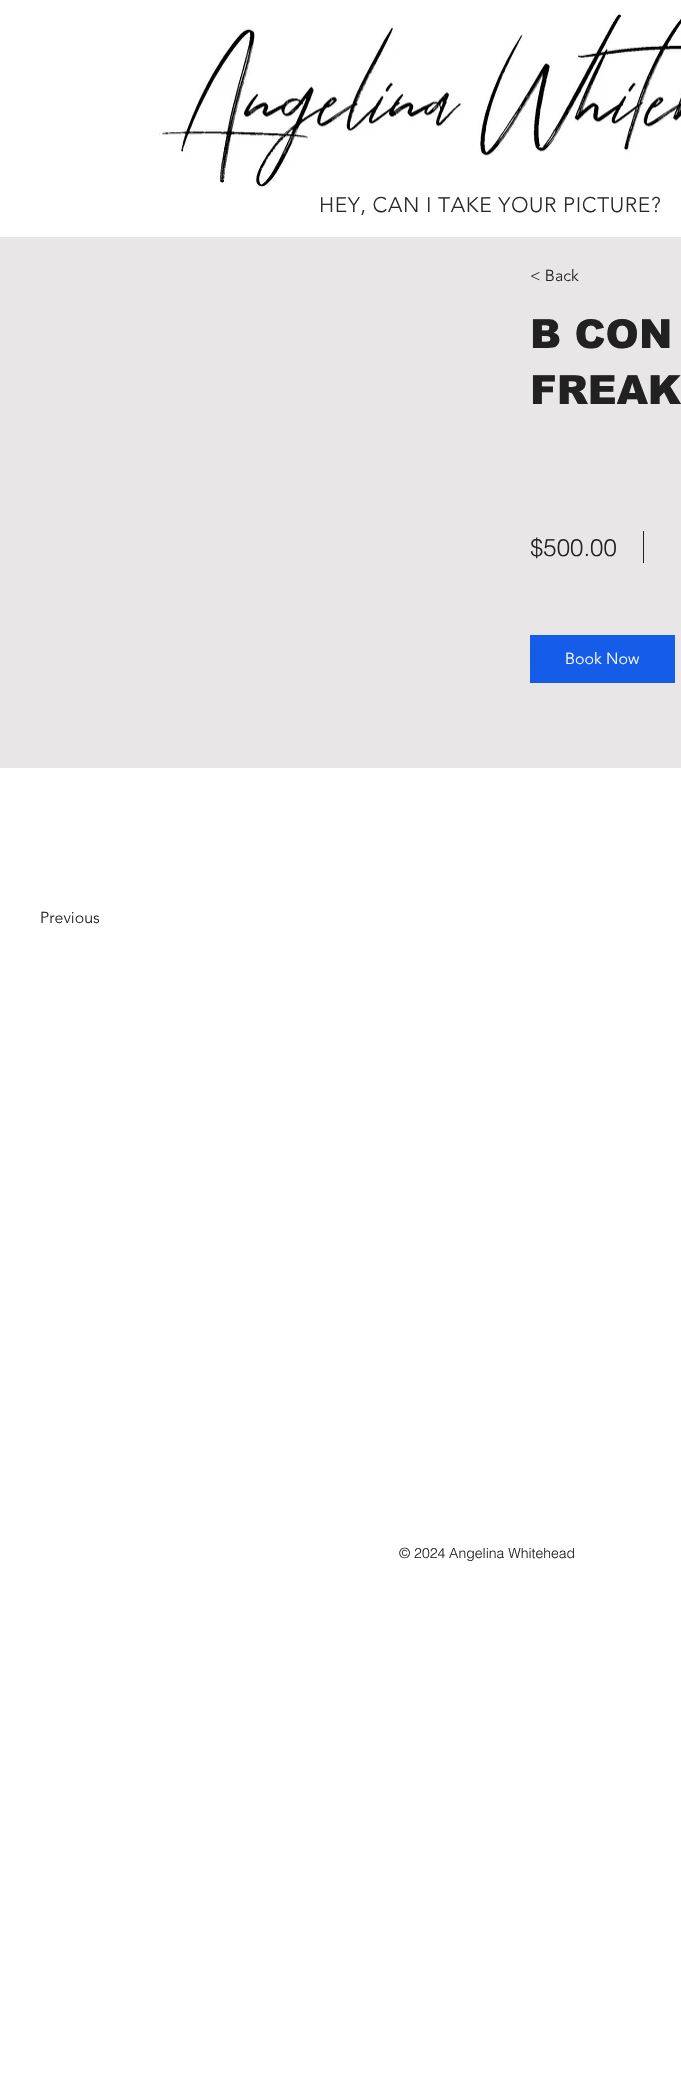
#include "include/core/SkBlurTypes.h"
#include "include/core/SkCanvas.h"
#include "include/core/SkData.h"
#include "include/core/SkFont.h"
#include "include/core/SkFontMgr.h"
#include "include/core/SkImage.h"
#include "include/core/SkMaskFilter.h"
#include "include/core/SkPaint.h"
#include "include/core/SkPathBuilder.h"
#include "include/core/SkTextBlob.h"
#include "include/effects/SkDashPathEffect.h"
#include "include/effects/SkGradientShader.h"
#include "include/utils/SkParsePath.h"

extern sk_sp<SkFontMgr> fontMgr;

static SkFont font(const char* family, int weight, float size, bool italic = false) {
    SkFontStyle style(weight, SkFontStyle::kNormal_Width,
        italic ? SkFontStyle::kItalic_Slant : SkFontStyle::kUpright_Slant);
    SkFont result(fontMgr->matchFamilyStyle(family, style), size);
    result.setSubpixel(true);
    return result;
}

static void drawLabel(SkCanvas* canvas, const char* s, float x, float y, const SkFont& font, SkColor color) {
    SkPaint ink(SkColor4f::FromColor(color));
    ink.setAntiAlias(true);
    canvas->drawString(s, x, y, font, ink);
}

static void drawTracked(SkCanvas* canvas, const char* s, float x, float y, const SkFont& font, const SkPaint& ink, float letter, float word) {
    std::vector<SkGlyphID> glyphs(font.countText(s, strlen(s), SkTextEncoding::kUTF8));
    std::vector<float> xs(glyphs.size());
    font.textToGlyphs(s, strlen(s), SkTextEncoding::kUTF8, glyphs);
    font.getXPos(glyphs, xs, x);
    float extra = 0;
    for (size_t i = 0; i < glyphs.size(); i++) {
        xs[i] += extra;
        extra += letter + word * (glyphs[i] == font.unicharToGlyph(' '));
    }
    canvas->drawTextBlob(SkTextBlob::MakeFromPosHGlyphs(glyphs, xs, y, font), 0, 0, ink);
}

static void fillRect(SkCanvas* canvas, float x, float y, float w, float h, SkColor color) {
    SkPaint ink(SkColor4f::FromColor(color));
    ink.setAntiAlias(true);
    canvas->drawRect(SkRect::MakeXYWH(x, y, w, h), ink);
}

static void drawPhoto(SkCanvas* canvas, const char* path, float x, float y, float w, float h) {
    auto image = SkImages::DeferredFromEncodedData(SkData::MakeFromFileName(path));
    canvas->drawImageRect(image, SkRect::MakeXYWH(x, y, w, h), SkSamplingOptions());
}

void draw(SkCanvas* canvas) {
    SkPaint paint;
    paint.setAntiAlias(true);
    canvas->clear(0xFFFFFFFF);
    drawPhoto(canvas, "assets/img1.png", 159, 12, 522, 176);
    SkFont font1 = font("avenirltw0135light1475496", 300, 21);
    paint.setColor(0xFF292929);
    drawTracked(canvas, "HEY, CAN I TAKE YOUR PICTURE?", 319, 212, font1, paint, 0.6f, 0);
    fillRect(canvas, 0, 237, 681, 531, 0xFFE8E6E6);
    SkFont font2 = font("avenirltw0135light1475496", 300, 16);
    drawLabel(canvas, "< Back", 530, 281, font2, 0xFF212121);
    SkFont font3 = font("arial", 900, 40);
    drawLabel(canvas, "B CON", 530, 348, font3, 0xFF212121);
    drawLabel(canvas, "FREAK", 530, 404, font3, 0xFF212121);
    SkFont font4 = font("helvetica", 300, 24);
    drawLabel(canvas, "$500.00", 530, 556, font4, 0xFF212121);
    fillRect(canvas, 643, 531, 1, 32, 0xFF212121);
    fillRect(canvas, 530, 635, 145, 48, 0xFF155DE9);
    drawLabel(canvas, "Book Now", 565, 664, font2, 0xFFFFFFFF);
    drawLabel(canvas, "Previous", 40, 923, font2, 0xFF212121);
    SkFont font5 = font("helvetica", 300, 14);
    drawLabel(canvas, "© 2024 Angelina Whitehead", 399, 1558, font5, 0xFF212121);
}
